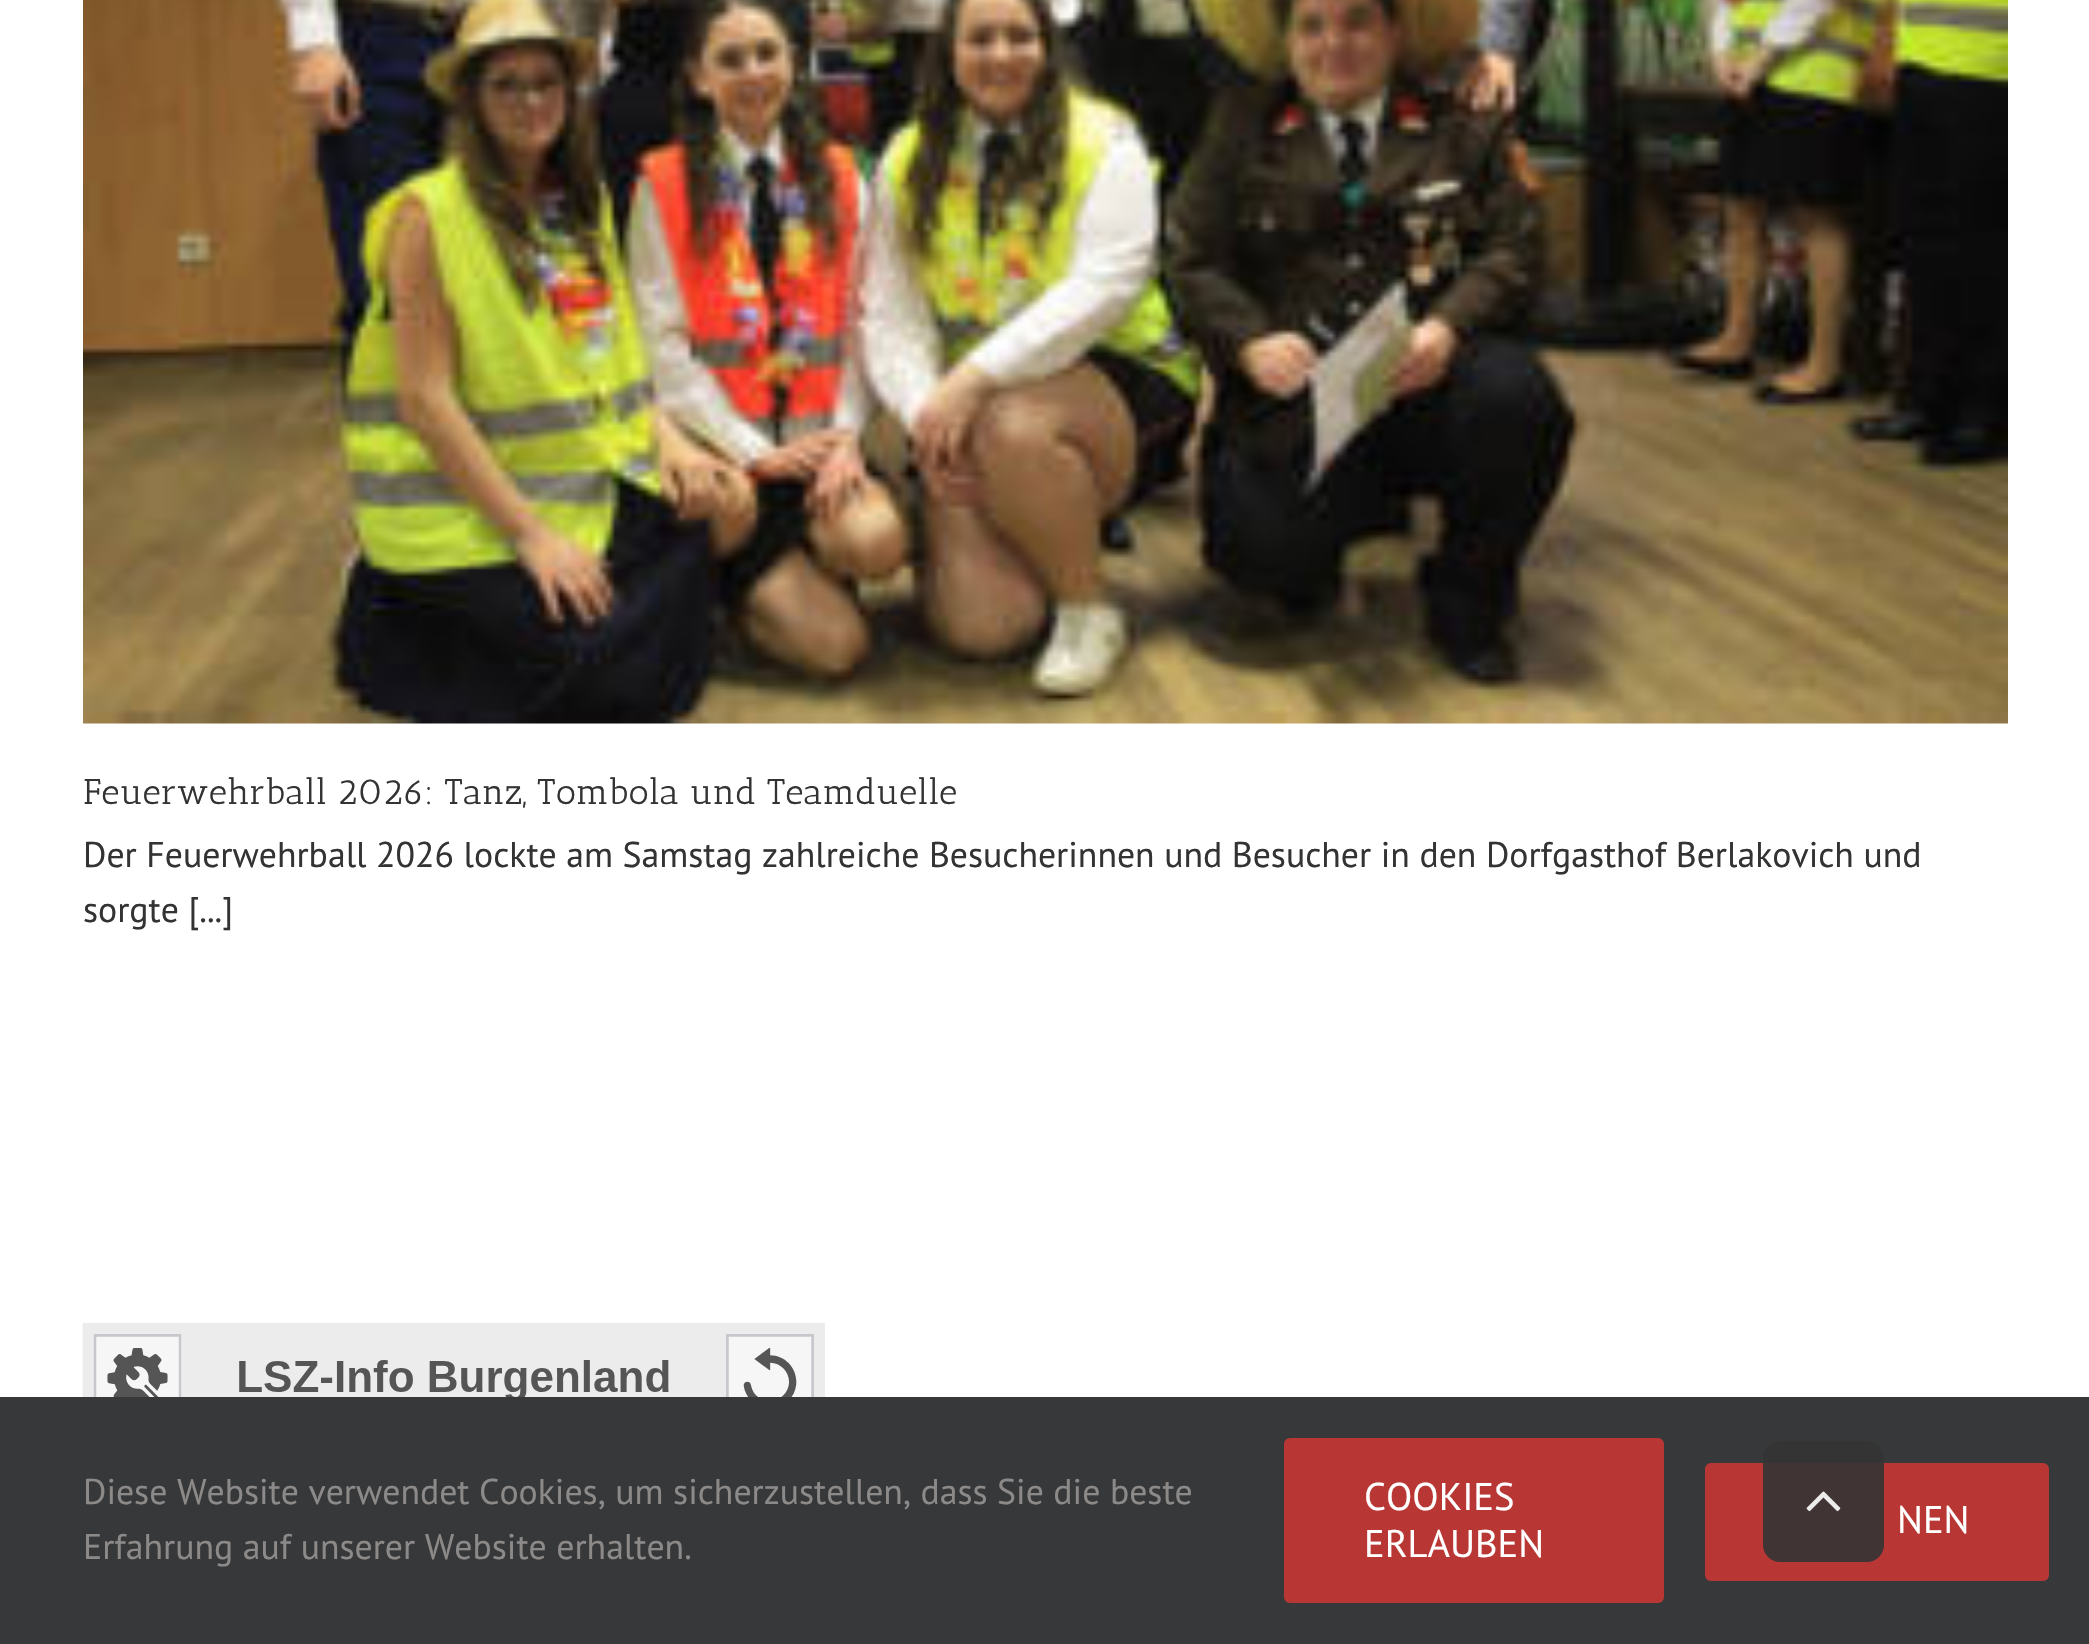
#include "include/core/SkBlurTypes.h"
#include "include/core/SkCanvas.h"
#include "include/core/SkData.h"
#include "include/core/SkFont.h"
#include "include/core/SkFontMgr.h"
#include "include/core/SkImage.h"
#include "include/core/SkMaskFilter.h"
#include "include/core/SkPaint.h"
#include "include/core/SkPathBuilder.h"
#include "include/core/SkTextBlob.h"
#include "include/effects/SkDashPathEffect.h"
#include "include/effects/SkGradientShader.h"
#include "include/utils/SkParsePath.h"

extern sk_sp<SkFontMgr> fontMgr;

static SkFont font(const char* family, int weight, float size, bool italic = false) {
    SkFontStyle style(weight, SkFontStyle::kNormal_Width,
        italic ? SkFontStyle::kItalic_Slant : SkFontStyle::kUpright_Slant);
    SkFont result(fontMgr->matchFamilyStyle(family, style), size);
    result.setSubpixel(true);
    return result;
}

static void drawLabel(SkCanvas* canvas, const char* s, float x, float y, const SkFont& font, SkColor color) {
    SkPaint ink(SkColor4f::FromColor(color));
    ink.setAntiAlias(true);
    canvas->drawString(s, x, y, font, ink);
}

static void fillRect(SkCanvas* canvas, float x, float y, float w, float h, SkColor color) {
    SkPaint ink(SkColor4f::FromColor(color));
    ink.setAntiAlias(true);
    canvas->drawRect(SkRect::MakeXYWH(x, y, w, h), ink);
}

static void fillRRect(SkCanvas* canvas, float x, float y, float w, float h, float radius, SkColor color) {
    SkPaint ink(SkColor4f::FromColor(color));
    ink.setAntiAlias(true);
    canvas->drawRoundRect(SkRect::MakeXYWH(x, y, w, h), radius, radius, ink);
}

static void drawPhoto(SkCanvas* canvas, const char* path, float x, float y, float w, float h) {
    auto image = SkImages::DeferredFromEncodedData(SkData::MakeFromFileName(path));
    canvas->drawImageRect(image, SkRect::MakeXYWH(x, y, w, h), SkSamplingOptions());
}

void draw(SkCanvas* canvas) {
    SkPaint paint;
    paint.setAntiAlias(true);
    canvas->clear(0xFFFFFFFF);
    drawPhoto(canvas, "assets/img1.png", 83, 0, 1925, 724);
    SkFont font1 = font("Antic Slab", 400, 35.75f);
    drawLabel(canvas, "Feuerwehrball 2026: Tanz, Tombola und Teamduelle", 83, 804, font1, 0xFF333333);
    SkFont font2 = font("PT Sans", 400, 35.75f);
    drawLabel(canvas, "Der Feuerwehrball 2026 lockte am Samstag zahlreiche Besucherinnen und Besucher in den Dorfgasthof Berlakovich und", 83, 867, font2, 0xFF333333);
    drawLabel(canvas, "sorgte [...]", 83, 922, font2, 0xFF333333);
    drawPhoto(canvas, "assets/img2.png", 82, 1323, 743, 74);
    fillRect(canvas, 0, 1397, 2089, 247, 0xFF363839);
    fillRRect(canvas, 1705, 1463, 344, 118, 6, 0xFFB83734);
    fillRRect(canvas, 1763, 1441, 121, 121, 17, 0xE6333333);
    drawPhoto(canvas, "assets/img3.png", 1806, 1491, 35, 21);
    drawLabel(canvas, "Diese Website verwendet Cookies, um sicherzustellen, dass Sie die beste", 83, 1504, font2, 0xFF8C8989);
    drawLabel(canvas, "Erfahrung auf unserer Website erhalten.", 83, 1559, font2, 0xFF8C8989);
    fillRRect(canvas, 1284, 1438, 380, 165, 6, 0xFFB83734);
    SkFont font3 = font("PT Sans", 400, 38.5f);
    drawLabel(canvas, "COOKIES", 1364, 1510, font3, 0xFFFFFFFF);
    drawLabel(canvas, "ERLAUBEN", 1364, 1557, font3, 0xFFFFFFFF);
    drawLabel(canvas, "NEN", 1897, 1533, font3, 0xFFFFFFFF);
}
